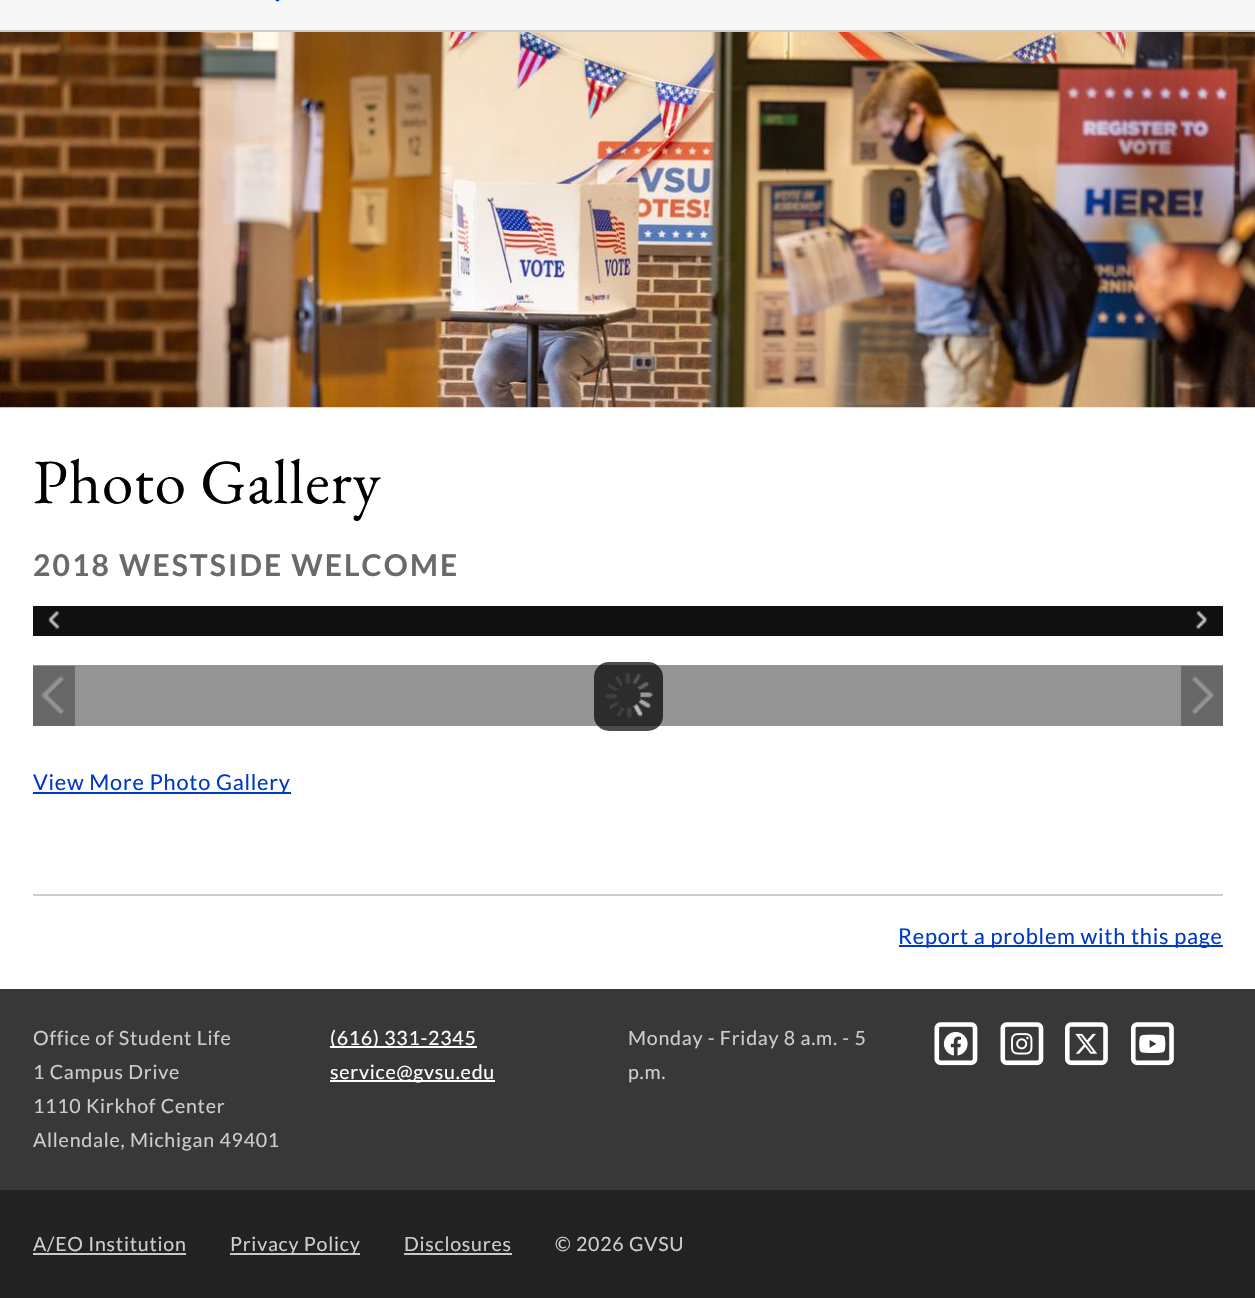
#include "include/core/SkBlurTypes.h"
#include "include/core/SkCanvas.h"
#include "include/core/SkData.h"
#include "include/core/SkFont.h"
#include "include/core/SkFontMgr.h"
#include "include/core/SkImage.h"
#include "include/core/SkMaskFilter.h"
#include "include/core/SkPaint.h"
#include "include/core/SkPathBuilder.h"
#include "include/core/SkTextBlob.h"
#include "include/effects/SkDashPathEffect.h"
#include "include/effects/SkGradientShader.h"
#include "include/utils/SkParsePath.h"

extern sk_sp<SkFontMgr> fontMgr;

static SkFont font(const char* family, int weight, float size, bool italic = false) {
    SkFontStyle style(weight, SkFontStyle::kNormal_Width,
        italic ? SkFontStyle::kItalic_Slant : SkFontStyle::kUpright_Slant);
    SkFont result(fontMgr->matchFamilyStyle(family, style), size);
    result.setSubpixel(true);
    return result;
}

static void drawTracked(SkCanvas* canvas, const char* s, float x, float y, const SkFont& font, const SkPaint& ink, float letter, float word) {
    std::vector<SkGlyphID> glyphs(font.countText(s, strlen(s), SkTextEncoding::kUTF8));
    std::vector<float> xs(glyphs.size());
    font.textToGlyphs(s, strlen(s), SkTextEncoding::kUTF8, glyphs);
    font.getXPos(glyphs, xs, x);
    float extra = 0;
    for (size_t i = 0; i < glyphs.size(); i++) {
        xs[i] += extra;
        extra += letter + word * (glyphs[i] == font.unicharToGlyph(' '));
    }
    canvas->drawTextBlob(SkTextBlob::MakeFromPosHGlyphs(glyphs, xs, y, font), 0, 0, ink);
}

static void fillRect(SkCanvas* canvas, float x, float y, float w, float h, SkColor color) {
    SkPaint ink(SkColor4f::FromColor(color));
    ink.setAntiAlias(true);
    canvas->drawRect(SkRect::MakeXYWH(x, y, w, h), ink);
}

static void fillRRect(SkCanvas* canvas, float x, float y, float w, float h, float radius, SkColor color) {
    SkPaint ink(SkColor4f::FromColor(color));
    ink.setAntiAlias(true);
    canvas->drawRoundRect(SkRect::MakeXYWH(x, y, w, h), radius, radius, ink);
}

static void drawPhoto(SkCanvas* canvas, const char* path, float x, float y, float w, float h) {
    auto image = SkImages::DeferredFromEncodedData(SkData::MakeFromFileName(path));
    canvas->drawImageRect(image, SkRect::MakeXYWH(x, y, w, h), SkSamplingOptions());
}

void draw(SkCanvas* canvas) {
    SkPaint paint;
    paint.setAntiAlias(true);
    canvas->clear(0xFFFFFFFF);
    fillRect(canvas, 0, 0, 1255, 30, 0xFFF7F7F7);
    fillRect(canvas, 0, 30, 1255, 2, 0xFFCCCCCC);
    drawPhoto(canvas, "assets/img1.png", 275, 0, 5, 2);
    drawPhoto(canvas, "assets/img2.png", 0, 32, 1255, 376);
    SkFont font1 = font("EB Garamond", 400, 63);
    paint.setColor(0xFF000000);
    drawTracked(canvas, "Photo Gallery", 33, 503, font1, paint, 0.9f, 0);
    SkFont font2 = font("Lato", 700, 30);
    paint.setColor(0xFF6A6A6A);
    drawTracked(canvas, "2018 WESTSIDE WELCOME", 33, 576, font2, paint, 2.1f, 0);
    fillRect(canvas, 33, 606, 1190, 30, 0xFF101010);
    drawPhoto(canvas, "assets/img3.png", 48, 610, 12, 20);
    drawPhoto(canvas, "assets/img4.png", 1195, 610, 13, 20);
    fillRect(canvas, 33, 665, 1190, 61, 0xFF949494);
    fillRRect(canvas, 594, 662, 69, 69, 15, 0xB3000000);
    drawPhoto(canvas, "assets/img5.png", 604, 671, 49, 49);
    fillRect(canvas, 33, 666, 42, 60, 0xFF686868);
    drawPhoto(canvas, "assets/img6.png", 41, 676, 24, 39);
    fillRect(canvas, 1181, 666, 42, 60, 0xFF686868);
    drawPhoto(canvas, "assets/img7.png", 1192, 676, 23, 39);
    fillRect(canvas, 33, 792, 258, 2, 0xFF0039C5);
    SkFont font3 = font("Lato", 400, 21.75f);
    paint.setColor(0xFF0039C5);
    drawTracked(canvas, "View More Photo Gallery", 33, 790, font3, paint, 0.75f, 0);
    fillRect(canvas, 33, 894, 1190, 2, 0xFFCCCCCC);
    fillRect(canvas, 899, 945, 324, 2, 0xFF0039C5);
    drawTracked(canvas, "Report a problem with this page", 898, 944, font3, paint, 0.75f, 0);
    fillRect(canvas, 0, 989, 1255, 201, 0xFF383838);
    SkFont font4 = font("Lato", 400, 19.6f);
    paint.setColor(0xFFCECDCD);
    drawTracked(canvas, "Office of Student Life", 33, 1045, font4, paint, 0.75f, 0);
    drawTracked(canvas, "1 Campus Drive", 33, 1079, font4, paint, 0.75f, 0);
    drawTracked(canvas, "1110 Kirkhof Center", 33, 1113, font4, paint, 0.75f, 0);
    drawTracked(canvas, "Allendale, Michigan 49401", 33, 1147, font4, paint, 0.75f, 0);
    fillRect(canvas, 330, 1046, 147, 2, 0xFFFFFFFF);
    paint.setColor(0xFFFFFFFF);
    drawTracked(canvas, "(616) 331-2345", 330, 1045, font4, paint, 0.75f, 0);
    fillRect(canvas, 330, 1080, 165, 2, 0xFFFFFFFF);
    drawTracked(canvas, "service@gvsu.edu", 330, 1079, font4, paint, 0.75f, 0);
    paint.setColor(0xFFCECDCD);
    drawTracked(canvas, "Monday - Friday 8 a.m. - 5", 628, 1045, font4, paint, 0.75f, 0);
    drawTracked(canvas, "p.m.", 628, 1079, font4, paint, 0.75f, 0);
    drawPhoto(canvas, "assets/img8.png", 934, 1022, 44, 44);
    drawPhoto(canvas, "assets/img9.png", 943, 1032, 25, 24);
    drawPhoto(canvas, "assets/img8.png", 1000, 1022, 44, 44);
    drawPhoto(canvas, "assets/img10.png", 1011, 1033, 22, 22);
    drawPhoto(canvas, "assets/img11.png", 1065, 1022, 43, 44);
    drawPhoto(canvas, "assets/img12.png", 1075, 1033, 23, 21);
    drawPhoto(canvas, "assets/img11.png", 1131, 1022, 43, 44);
    drawPhoto(canvas, "assets/img13.png", 1139, 1034, 27, 19);
    fillRect(canvas, 0, 1190, 1255, 108, 0xFF222222);
    drawTracked(canvas, "A/EO Institution", 33, 1251, font4, paint, 0.75f, 0);
    fillRect(canvas, 33, 1253, 153, 2, 0xFFC9C9C9);
    fillRect(canvas, 230, 1253, 130, 2, 0xFFC9C9C9);
    drawTracked(canvas, "Privacy Policy", 230, 1251, font4, paint, 0.75f, 0);
    drawTracked(canvas, "Disclosures", 404, 1251, font4, paint, 0.75f, 0);
    fillRect(canvas, 404, 1253, 108, 2, 0xFFC9C9C9);
    drawTracked(canvas, "© 2026 GVSU", 555, 1251, font4, paint, 0.75f, 0);
}
